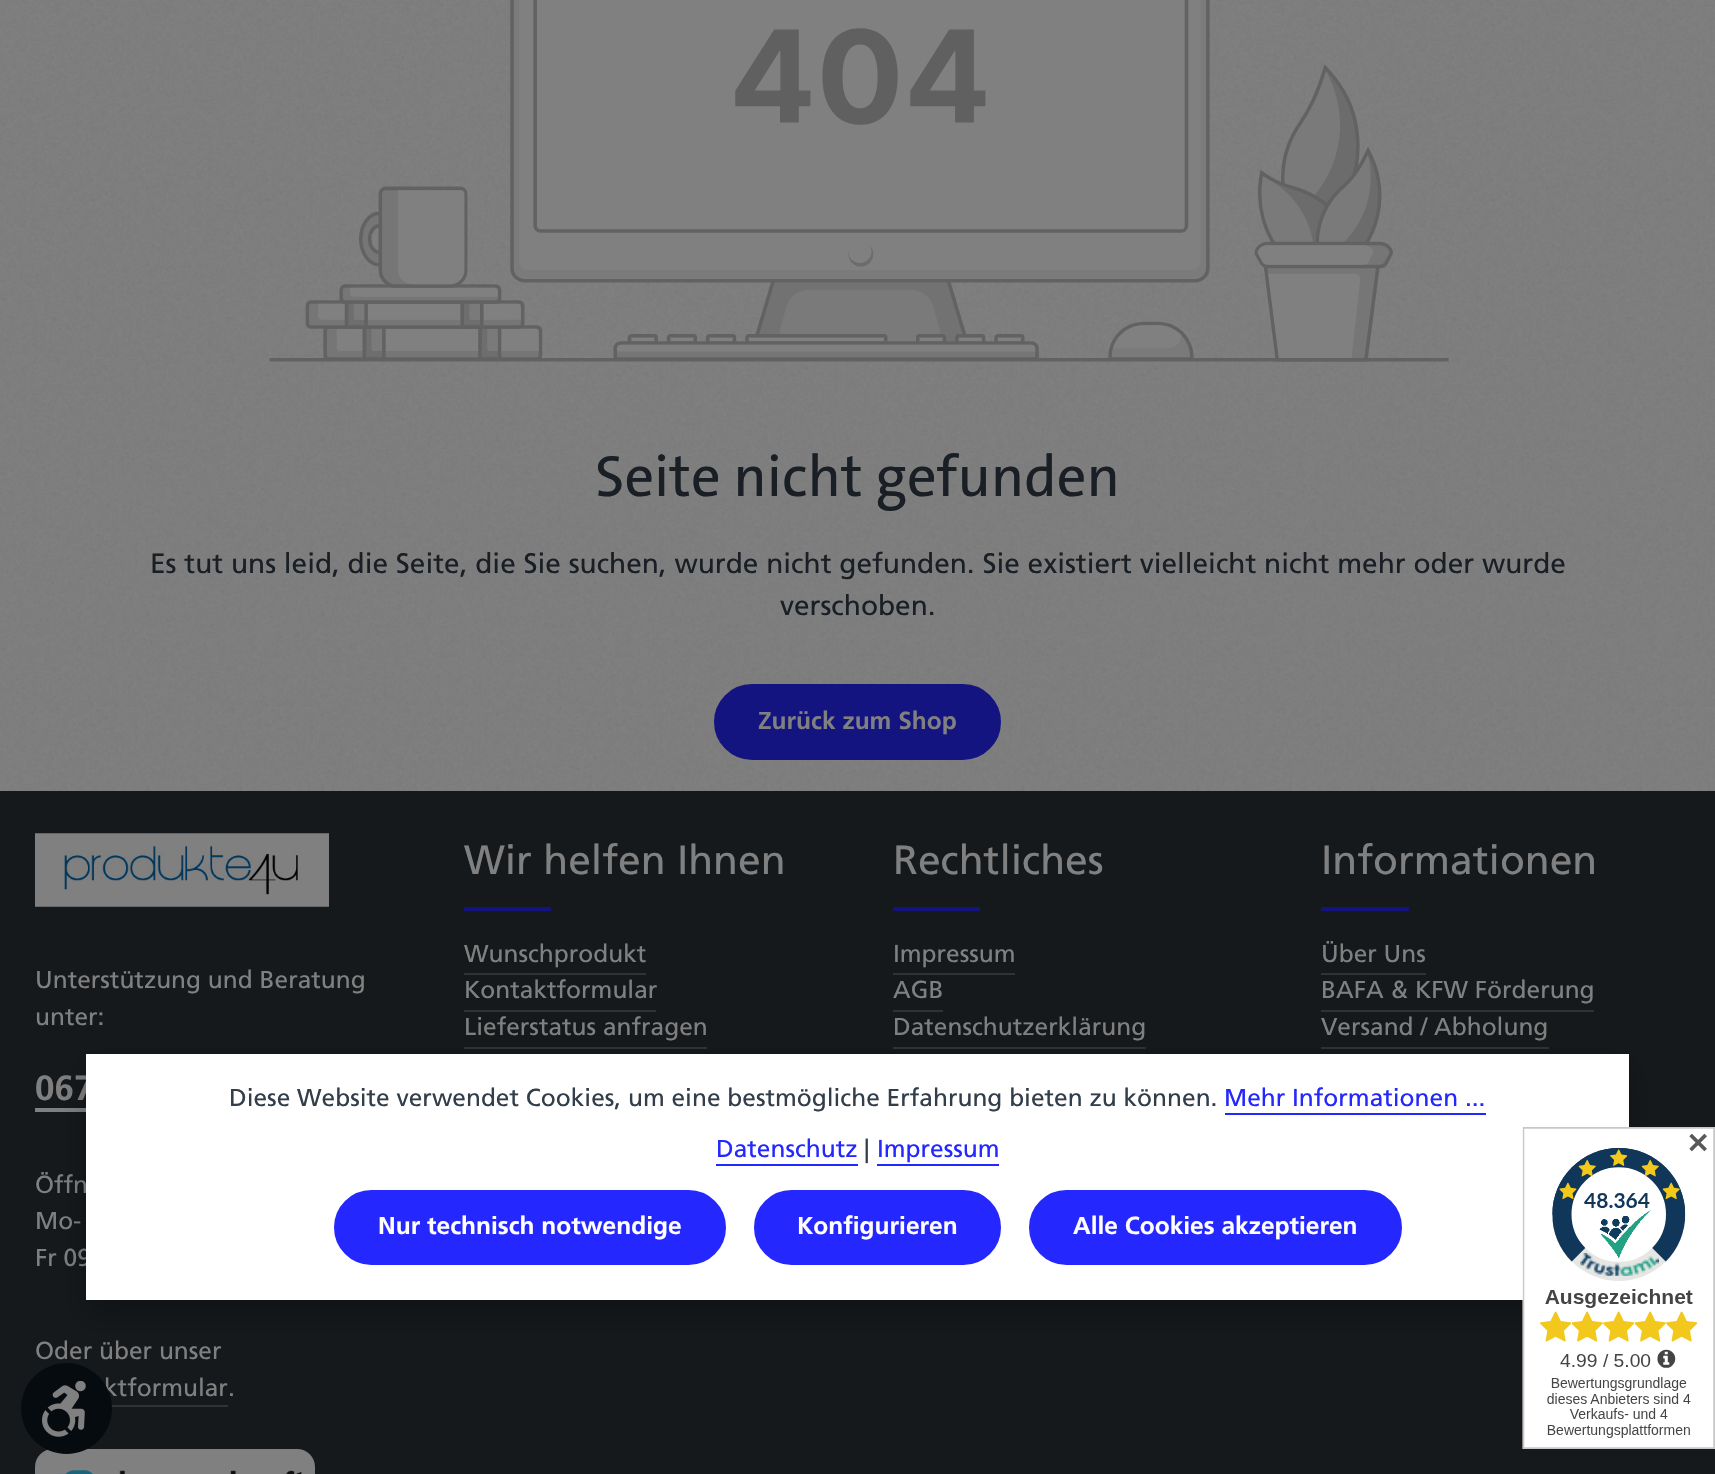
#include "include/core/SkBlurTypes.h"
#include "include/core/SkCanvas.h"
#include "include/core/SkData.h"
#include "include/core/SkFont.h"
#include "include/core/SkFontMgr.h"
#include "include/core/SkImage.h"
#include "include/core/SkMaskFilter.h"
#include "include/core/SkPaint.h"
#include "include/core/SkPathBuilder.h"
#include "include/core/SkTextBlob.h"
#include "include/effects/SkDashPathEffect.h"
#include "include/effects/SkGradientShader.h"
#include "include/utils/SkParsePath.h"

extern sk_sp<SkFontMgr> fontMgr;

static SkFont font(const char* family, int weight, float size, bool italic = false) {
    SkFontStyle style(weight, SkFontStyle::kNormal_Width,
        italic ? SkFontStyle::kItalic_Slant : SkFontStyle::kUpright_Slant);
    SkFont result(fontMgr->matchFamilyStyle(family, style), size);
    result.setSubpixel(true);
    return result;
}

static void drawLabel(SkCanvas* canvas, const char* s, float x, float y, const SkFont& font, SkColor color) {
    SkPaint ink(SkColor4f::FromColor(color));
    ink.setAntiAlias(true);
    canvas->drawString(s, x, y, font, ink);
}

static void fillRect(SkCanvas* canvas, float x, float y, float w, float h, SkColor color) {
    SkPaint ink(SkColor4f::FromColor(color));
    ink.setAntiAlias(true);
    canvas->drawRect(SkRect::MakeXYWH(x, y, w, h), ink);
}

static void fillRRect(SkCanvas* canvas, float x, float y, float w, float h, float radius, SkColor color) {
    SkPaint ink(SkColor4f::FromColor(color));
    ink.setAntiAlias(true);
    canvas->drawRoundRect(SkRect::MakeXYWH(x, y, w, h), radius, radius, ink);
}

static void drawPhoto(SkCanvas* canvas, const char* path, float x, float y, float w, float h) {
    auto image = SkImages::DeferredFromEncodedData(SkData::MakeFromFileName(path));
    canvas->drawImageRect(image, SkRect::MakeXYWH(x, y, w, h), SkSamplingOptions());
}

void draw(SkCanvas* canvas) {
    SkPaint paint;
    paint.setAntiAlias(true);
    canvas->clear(0xFF808080);
    drawPhoto(canvas, "assets/img1.png", 0, 0, 1715, 791);
    drawPhoto(canvas, "assets/img2.png", 269, 0, 1180, 362);
    SkFont font1 = font("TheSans", 400, 58.4f);
    drawLabel(canvas, "Seite nicht gefunden", 595, 496, font1, 0xFF191F25);
    SkFont font2 = font("Frutiger", 400, 28);
    drawLabel(canvas, "Es tut uns leid, die Seite, die Sie suchen, wurde nicht gefunden. Sie existiert vielleicht nicht mehr oder wurde", 150, 573, font2, 0xFF191F25);
    drawLabel(canvas, "verschoben.", 780, 615, font2, 0xFF191F25);
    paint.setColor(0xFF131480);
    canvas->drawRoundRect(SkRect::MakeXYWH(715, 685, 285, 74), 37, 37, paint);
    paint.setStroke(true);
    paint.setStrokeWidth(2);
    canvas->drawRoundRect(SkRect::MakeXYWH(715, 685, 285, 74), 37, 37, paint);
    SkFont font3 = font("Frutiger", 700, 24.5f);
    drawLabel(canvas, "Zurück zum Shop", 758, 729, font3, 0xFF808080);
    fillRect(canvas, 0, 791, 1715, 683, 0xFF15191C);
    SkFont font4 = font("Frutiger", 400, 40.75f);
    drawLabel(canvas, "Wir helfen Ihnen", 464, 874, font4, 0xFF808080);
    fillRect(canvas, 464, 907, 87, 4, 0xFF131480);
    SkFont font5 = font("Frutiger", 400, 24.5f);
    drawLabel(canvas, "Wunschprodukt", 464, 962, font5, 0xFF808080);
    fillRect(canvas, 464, 973, 182, 2, 0xFF303335);
    drawLabel(canvas, "Kontaktformular", 464, 998, font5, 0xFF808080);
    fillRect(canvas, 464, 1010, 192, 2, 0xFF303335);
    drawLabel(canvas, "Lieferstatus anfragen", 464, 1035, font5, 0xFF808080);
    fillRect(canvas, 464, 1047, 243, 2, 0xFF303335);
    drawLabel(canvas, "Rechtliches", 893, 874, font4, 0xFF808080);
    fillRect(canvas, 893, 907, 87, 4, 0xFF131480);
    drawLabel(canvas, "Impressum", 893, 962, font5, 0xFF808080);
    fillRect(canvas, 893, 973, 122, 2, 0xFF303335);
    drawLabel(canvas, "AGB", 893, 998, font5, 0xFF808080);
    fillRect(canvas, 893, 1010, 50, 2, 0xFF303335);
    drawLabel(canvas, "Datenschutzerklärung", 893, 1035, font5, 0xFF808080);
    fillRect(canvas, 893, 1047, 253, 2, 0xFF303335);
    drawLabel(canvas, "Informationen", 1321, 874, font4, 0xFF808080);
    fillRect(canvas, 1321, 907, 88, 4, 0xFF131480);
    drawLabel(canvas, "Über Uns", 1321, 962, font5, 0xFF808080);
    fillRect(canvas, 1321, 973, 105, 2, 0xFF303335);
    drawLabel(canvas, "BAFA & KFW Förderung", 1321, 998, font5, 0xFF808080);
    fillRect(canvas, 1321, 1010, 273, 2, 0xFF303335);
    drawLabel(canvas, "Versand / Abholung", 1321, 1035, font5, 0xFF808080);
    fillRect(canvas, 1321, 1047, 228, 2, 0xFF303335);
    drawPhoto(canvas, "assets/img3.png", 35, 833, 294, 74);
    drawLabel(canvas, "Unterstützung und Beratung", 35, 988, font5, 0xFF808080);
    drawLabel(canvas, "unter:", 35, 1025, font5, 0xFF808080);
    SkFont font6 = font("Frutiger", 700, 35);
    drawLabel(canvas, "067", 35, 1100, font6, 0xFF808080);
    fillRect(canvas, 35, 1108, 51, 4, 0xFF808080);
    drawLabel(canvas, "Öffn", 35, 1193, font5, 0xFF808080);
    drawLabel(canvas, "Mo-", 35, 1229, font5, 0xFF808080);
    drawLabel(canvas, "Fr 09", 35, 1266, font5, 0xFF808080);
    drawLabel(canvas, "Oder über unser", 35, 1359, font5, 0xFF808080);
    drawLabel(canvas, "ktformular", 104, 1396, font5, 0xFF808080);
    fillRect(canvas, 111, 1405, 117, 2, 0xFF303335);
    drawLabel(canvas, ".", 228, 1396, font5, 0xFF808080);
    fillRRect(canvas, 35, 1449, 280, 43, 18, 0xFF808080);
    drawPhoto(canvas, "assets/img4.png", 56, 1470, 246, 4);
    paint.setStroke(false);
    paint.setColor(0xFF060B10);
    canvas->drawCircle(66.5f, 1408.5f, 45.5f, paint);
    drawPhoto(canvas, "assets/img5.png", 42, 1381, 44, 56);
    paint.setColor(0x40000000);
    paint.setMaskFilter(SkMaskFilter::MakeBlur(kNormal_SkBlurStyle, 14));
    canvas->drawRect(SkRect::MakeXYWH(86, 1068, 1543, 246), paint);
    paint.setMaskFilter(nullptr);
    fillRect(canvas, 86, 1054, 1543, 246, 0xFFFFFFFF);
    drawLabel(canvas, "Diese Website verwendet Cookies, um eine bestmögliche Erfahrung bieten zu können.", 229, 1106, font5, 0xFF323E4A);
    drawLabel(canvas, "Mehr Informationen ...", 1224, 1106, font5, 0xFF2527FF);
    fillRect(canvas, 1225, 1113, 261, 2, 0xFF2527FF);
    drawLabel(canvas, "Datenschutz", 716, 1157, font5, 0xFF2527FF);
    fillRect(canvas, 716, 1164, 142, 2, 0xFF2527FF);
    drawLabel(canvas, "|", 864, 1157, font5, 0xFF323E4A);
    drawLabel(canvas, "Impressum", 877, 1157, font5, 0xFF2527FF);
    fillRect(canvas, 877, 1164, 122, 2, 0xFF2527FF);
    paint.setColor(0xFF2527FF);
    canvas->drawRoundRect(SkRect::MakeXYWH(335, 1191, 390, 73), 36.5f, 36.5f, paint);
    paint.setStroke(true);
    canvas->drawRoundRect(SkRect::MakeXYWH(335, 1191, 390, 73), 36.5f, 36.5f, paint);
    drawLabel(canvas, "Nur technisch notwendige", 378, 1234, font3, 0xFFFFFFFF);
    paint.setStroke(false);
    canvas->drawRoundRect(SkRect::MakeXYWH(755, 1191, 245, 73), 36.5f, 36.5f, paint);
    paint.setStroke(true);
    canvas->drawRoundRect(SkRect::MakeXYWH(755, 1191, 245, 73), 36.5f, 36.5f, paint);
    drawLabel(canvas, "Konfigurieren", 797, 1234, font3, 0xFFFFFFFF);
    paint.setStroke(false);
    canvas->drawRoundRect(SkRect::MakeXYWH(1030, 1191, 371, 73), 36.5f, 36.5f, paint);
    paint.setStroke(true);
    canvas->drawRoundRect(SkRect::MakeXYWH(1030, 1191, 371, 73), 36.5f, 36.5f, paint);
    drawLabel(canvas, "Alle Cookies akzeptieren", 1073, 1234, font3, 0xFFFFFFFF);
    drawPhoto(canvas, "assets/img6.png", 1522, 1127, 193, 322);
    SkFont font7 = font("DejaVu Sans", 700, 28);
    drawLabel(canvas, "✕", 1686, 1153, font7, 0xFF595959);
}
